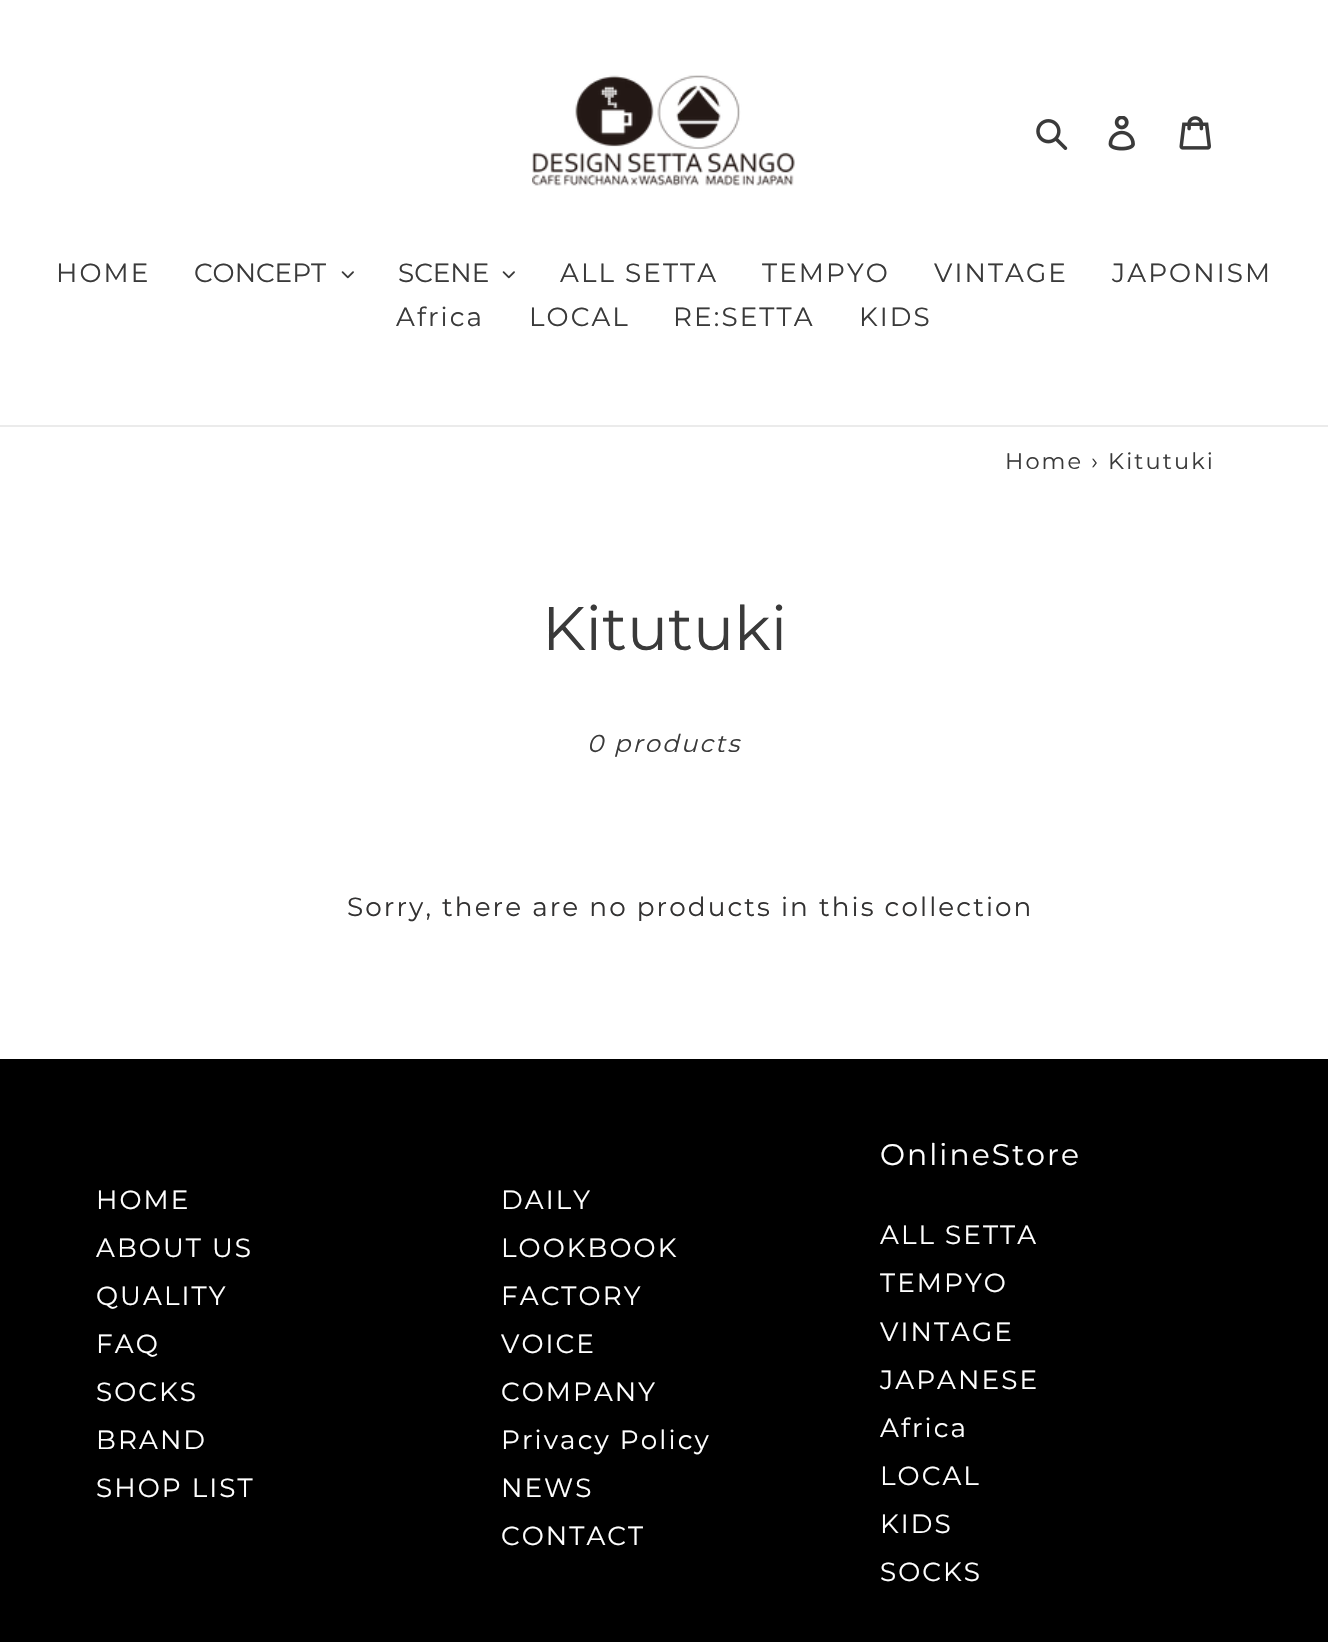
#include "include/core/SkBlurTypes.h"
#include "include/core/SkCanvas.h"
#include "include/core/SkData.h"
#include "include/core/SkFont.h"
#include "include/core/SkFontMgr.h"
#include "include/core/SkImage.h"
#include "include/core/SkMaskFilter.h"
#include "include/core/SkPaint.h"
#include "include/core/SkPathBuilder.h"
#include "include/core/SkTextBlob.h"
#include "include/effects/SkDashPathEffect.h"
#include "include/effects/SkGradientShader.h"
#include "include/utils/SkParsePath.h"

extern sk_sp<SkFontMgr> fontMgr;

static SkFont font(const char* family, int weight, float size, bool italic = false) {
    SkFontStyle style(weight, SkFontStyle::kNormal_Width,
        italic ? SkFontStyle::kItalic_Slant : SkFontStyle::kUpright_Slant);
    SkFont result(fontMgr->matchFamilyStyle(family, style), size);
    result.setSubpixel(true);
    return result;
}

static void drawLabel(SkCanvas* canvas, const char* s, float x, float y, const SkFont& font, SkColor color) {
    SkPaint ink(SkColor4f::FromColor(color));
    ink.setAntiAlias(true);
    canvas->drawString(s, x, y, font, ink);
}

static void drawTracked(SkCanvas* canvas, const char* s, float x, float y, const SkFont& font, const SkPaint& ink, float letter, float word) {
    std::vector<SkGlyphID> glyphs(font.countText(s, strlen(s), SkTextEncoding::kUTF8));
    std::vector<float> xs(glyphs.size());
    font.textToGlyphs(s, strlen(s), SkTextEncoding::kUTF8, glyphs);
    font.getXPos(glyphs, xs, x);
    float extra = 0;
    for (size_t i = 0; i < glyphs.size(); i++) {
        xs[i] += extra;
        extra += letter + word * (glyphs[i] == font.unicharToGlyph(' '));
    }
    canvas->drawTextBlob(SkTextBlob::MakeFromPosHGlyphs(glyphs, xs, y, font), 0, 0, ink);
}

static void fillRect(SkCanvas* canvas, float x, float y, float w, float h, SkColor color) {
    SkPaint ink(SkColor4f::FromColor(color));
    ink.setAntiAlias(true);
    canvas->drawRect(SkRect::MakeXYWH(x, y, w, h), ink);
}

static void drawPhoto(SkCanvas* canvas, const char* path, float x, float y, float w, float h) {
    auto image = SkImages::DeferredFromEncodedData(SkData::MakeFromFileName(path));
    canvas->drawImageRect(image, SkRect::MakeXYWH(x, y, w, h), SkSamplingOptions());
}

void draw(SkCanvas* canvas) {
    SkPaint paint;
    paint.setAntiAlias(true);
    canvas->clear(0xFFFFFFFF);
    drawPhoto(canvas, "assets/img1.png", 532, 75, 263, 111);
    drawPhoto(canvas, "assets/img2.png", 1036, 119, 32, 31);
    drawPhoto(canvas, "assets/img3.png", 1108, 116, 27, 35);
    drawPhoto(canvas, "assets/img4.png", 1179, 116, 32, 34);
    fillRect(canvas, 0, 425, 1328, 2, 0xFFEBEBEB);
    SkFont font1 = font("Montserrat", 400, 26.25f);
    paint.setColor(0xFF3A3A3A);
    drawTracked(canvas, "HOME", 56, 282, font1, paint, 2.1f, 0);
    drawLabel(canvas, "CONCEPT", 194, 282, font1, 0xFF3A3A3A);
    drawPhoto(canvas, "assets/img5.png", 341, 271, 13, 8);
    drawLabel(canvas, "SCENE", 398, 282, font1, 0xFF3A3A3A);
    drawPhoto(canvas, "assets/img5.png", 502, 271, 13, 8);
    drawTracked(canvas, "ALL SETTA", 560, 282, font1, paint, 2.1f, 0);
    drawTracked(canvas, "TEMPYO", 762, 282, font1, paint, 2.1f, 0);
    drawTracked(canvas, "VINTAGE", 934, 282, font1, paint, 2.1f, 0);
    drawTracked(canvas, "JAPONISM", 1112, 282, font1, paint, 2.1f, 0);
    drawTracked(canvas, "Africa", 396, 326, font1, paint, 2.1f, 0);
    drawTracked(canvas, "LOCAL", 529, 326, font1, paint, 2.1f, 0);
    drawTracked(canvas, "RE:SETTA", 673, 326, font1, paint, 2.1f, 0);
    drawTracked(canvas, "KIDS", 859, 326, font1, paint, 2.1f, 0);
    SkFont font2 = font("Montserrat", 400, 22.5f);
    drawTracked(canvas, "Home › Kitutuki", 1005, 469, font2, paint, 2.1f, 0);
    SkFont font3 = font("Montserrat", 400, 61.25f);
    drawLabel(canvas, "Kitutuki", 542, 650, font3, 0xFF3A3A3A);
    SkFont font4 = font("Montserrat", 400, 24.5f, true);
    drawTracked(canvas, "0 products", 587, 752, font4, paint, 2.1f, 0);
    paint.setColor(0xFF333232);
    drawTracked(canvas, "Sorry, there are no products in this collection", 347, 916, font1, paint, 2.1f, 0);
    fillRect(canvas, 0, 1059, 1328, 583, 0xFF000000);
    paint.setColor(0xFFFFFFFF);
    drawTracked(canvas, "HOME", 96, 1209, font1, paint, 2.1f, 0);
    drawTracked(canvas, "ABOUT US", 96, 1257, font1, paint, 2.1f, 0);
    drawTracked(canvas, "QUALITY", 96, 1305, font1, paint, 2.1f, 0);
    drawTracked(canvas, "FAQ", 96, 1353, font1, paint, 2.1f, 0);
    drawTracked(canvas, "SOCKS", 96, 1401, font1, paint, 2.1f, 0);
    drawTracked(canvas, "BRAND", 96, 1449, font1, paint, 2.1f, 0);
    drawTracked(canvas, "SHOP LIST", 96, 1497, font1, paint, 2.1f, 0);
    drawTracked(canvas, "DAILY", 501, 1209, font1, paint, 2.1f, 0);
    drawTracked(canvas, "LOOKBOOK", 501, 1257, font1, paint, 2.1f, 0);
    drawTracked(canvas, "FACTORY", 501, 1305, font1, paint, 2.1f, 0);
    drawTracked(canvas, "VOICE", 501, 1353, font1, paint, 2.1f, 0);
    drawTracked(canvas, "COMPANY", 501, 1401, font1, paint, 2.1f, 0);
    drawTracked(canvas, "Privacy Policy", 501, 1449, font1, paint, 2.1f, 0);
    drawTracked(canvas, "NEWS", 501, 1497, font1, paint, 2.1f, 0);
    drawTracked(canvas, "CONTACT", 501, 1545, font1, paint, 2.1f, 0);
    SkFont font5 = font("Montserrat", 400, 29.75f);
    drawTracked(canvas, "OnlineStore", 880, 1165, font5, paint, 2.1f, 0);
    drawTracked(canvas, "ALL SETTA", 880, 1244, font1, paint, 2.1f, 0);
    drawTracked(canvas, "TEMPYO", 880, 1292, font1, paint, 2.1f, 0);
    drawTracked(canvas, "VINTAGE", 880, 1341, font1, paint, 2.1f, 0);
    drawTracked(canvas, "JAPANESE", 880, 1389, font1, paint, 2.1f, 0);
    drawTracked(canvas, "Africa", 880, 1437, font1, paint, 2.1f, 0);
    drawTracked(canvas, "LOCAL", 880, 1485, font1, paint, 2.1f, 0);
    drawTracked(canvas, "KIDS", 880, 1533, font1, paint, 2.1f, 0);
    drawTracked(canvas, "SOCKS", 880, 1581, font1, paint, 2.1f, 0);
}
